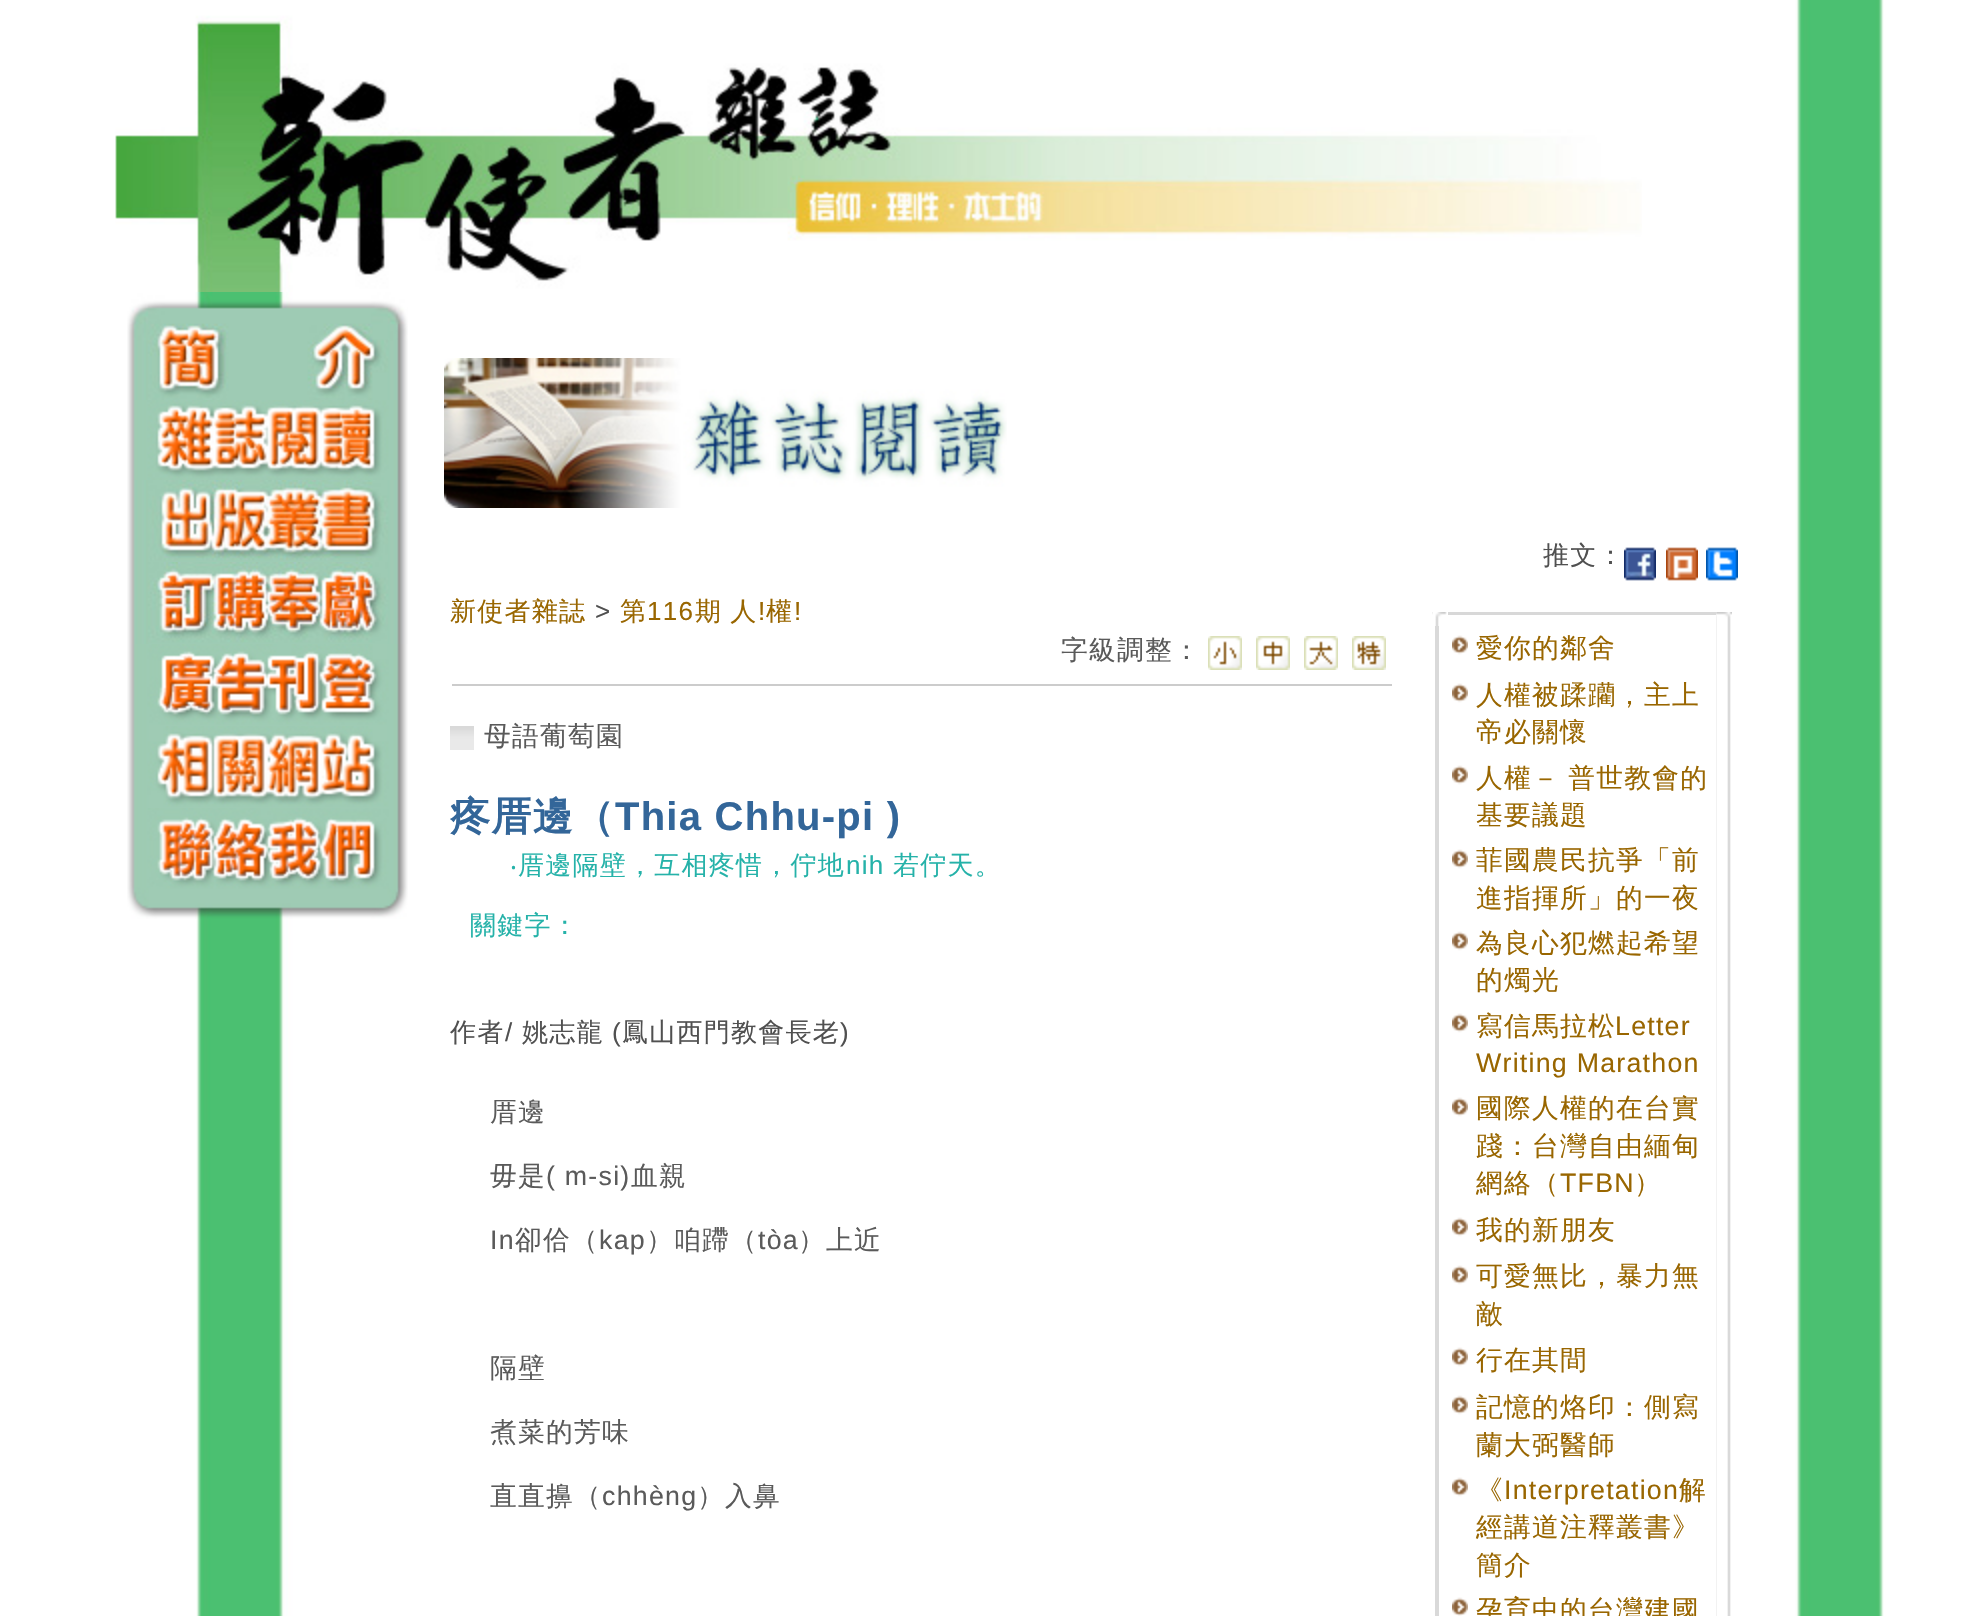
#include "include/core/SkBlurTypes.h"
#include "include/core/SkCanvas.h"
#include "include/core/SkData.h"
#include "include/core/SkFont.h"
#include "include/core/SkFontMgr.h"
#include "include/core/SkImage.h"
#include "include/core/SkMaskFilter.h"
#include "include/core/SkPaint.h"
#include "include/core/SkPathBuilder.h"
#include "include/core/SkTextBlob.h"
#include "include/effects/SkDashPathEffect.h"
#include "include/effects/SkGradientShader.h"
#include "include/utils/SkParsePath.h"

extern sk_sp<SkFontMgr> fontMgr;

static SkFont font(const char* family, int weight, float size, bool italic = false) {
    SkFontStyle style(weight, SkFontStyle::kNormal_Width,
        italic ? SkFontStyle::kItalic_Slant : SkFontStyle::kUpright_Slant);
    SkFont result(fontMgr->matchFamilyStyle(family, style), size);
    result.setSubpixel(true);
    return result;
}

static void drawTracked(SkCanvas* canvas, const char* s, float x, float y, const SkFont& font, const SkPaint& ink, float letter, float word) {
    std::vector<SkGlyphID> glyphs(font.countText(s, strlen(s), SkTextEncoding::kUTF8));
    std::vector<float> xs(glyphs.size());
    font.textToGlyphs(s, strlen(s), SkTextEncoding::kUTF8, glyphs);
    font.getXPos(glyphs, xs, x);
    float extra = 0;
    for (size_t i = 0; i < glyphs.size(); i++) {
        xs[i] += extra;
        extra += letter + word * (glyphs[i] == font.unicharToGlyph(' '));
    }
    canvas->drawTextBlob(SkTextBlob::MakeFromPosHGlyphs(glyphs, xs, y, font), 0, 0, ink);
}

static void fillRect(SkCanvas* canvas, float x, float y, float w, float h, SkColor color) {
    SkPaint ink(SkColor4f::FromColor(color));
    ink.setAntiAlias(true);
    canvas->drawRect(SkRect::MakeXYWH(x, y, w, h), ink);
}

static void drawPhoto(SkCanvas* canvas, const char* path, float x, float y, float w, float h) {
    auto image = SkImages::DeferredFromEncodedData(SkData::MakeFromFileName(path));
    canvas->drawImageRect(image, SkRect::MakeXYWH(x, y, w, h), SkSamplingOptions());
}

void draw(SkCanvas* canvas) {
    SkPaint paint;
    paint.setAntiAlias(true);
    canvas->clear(0xFFFFFFFF);
    drawPhoto(canvas, "assets/img1.png", 196, 0, 1688, 1616);
    drawPhoto(canvas, "assets/img2.png", 115, 0, 1527, 292);
    drawPhoto(canvas, "assets/img3.png", 127, 292, 281, 108);
    drawPhoto(canvas, "assets/img4.png", 127, 400, 281, 80);
    drawPhoto(canvas, "assets/img5.png", 127, 480, 281, 82);
    drawPhoto(canvas, "assets/img6.png", 127, 562, 281, 82);
    drawPhoto(canvas, "assets/img7.png", 127, 644, 281, 82);
    drawPhoto(canvas, "assets/img8.png", 127, 726, 281, 82);
    drawPhoto(canvas, "assets/img9.png", 127, 808, 281, 111);
    drawPhoto(canvas, "assets/img10.png", 444, 358, 563, 150);
    SkFont font1 = font("WenQuanYi Zen Hei", 500, 26);
    paint.setColor(0xFF505050);
    drawTracked(canvas, "推文：", 1543, 564, font1, paint, 1.25f, 0);
    drawPhoto(canvas, "assets/img11.png", 1624, 547, 32, 34);
    drawPhoto(canvas, "assets/img12.png", 1666, 547, 32, 34);
    drawPhoto(canvas, "assets/img13.png", 1706, 547, 32, 34);
    paint.setColor(0xFF996600);
    drawTracked(canvas, "新使者雜誌", 450, 620, font1, paint, 1.25f, 0);
    SkFont font2 = font("Liberation Sans", 400, 26);
    paint.setColor(0xFF505050);
    drawTracked(canvas, ">", 595, 620, font2, paint, 1.25f, 0);
    paint.setColor(0xFF996600);
    drawTracked(canvas, "第", 620, 620, font1, paint, 1.25f, 0);
    drawTracked(canvas, "116", 647, 620, font2, paint, 1.25f, 0);
    drawTracked(canvas, "期 人", 695, 620, font1, paint, 1.25f, -1);
    drawTracked(canvas, "!", 758, 620, font2, paint, 1.25f, 0);
    drawTracked(canvas, "權", 766, 620, font1, paint, 1.25f, 0);
    drawTracked(canvas, "!", 794, 620, font2, paint, 1.25f, 0);
    SkFont font3 = font("WenQuanYi Zen Hei", 500, 26.75f);
    paint.setColor(0xFF5A5A5A);
    drawTracked(canvas, "字級調整：", 1061, 659, font3, paint, 1.25f, 0);
    drawPhoto(canvas, "assets/img14.png", 1208, 636, 34, 34);
    drawPhoto(canvas, "assets/img15.png", 1256, 636, 34, 34);
    drawPhoto(canvas, "assets/img16.png", 1304, 636, 34, 34);
    drawPhoto(canvas, "assets/img17.png", 1352, 636, 34, 34);
    fillRect(canvas, 452, 684, 940, 2, 0xFFCCCCCC);
    drawPhoto(canvas, "assets/img18.png", 450, 726, 24, 24);
    drawTracked(canvas, "母語葡萄園", 484, 745, font3, paint, 1.25f, 0);
    SkFont font4 = font("WenQuanYi Zen Hei", 700, 40);
    paint.setColor(0xFF336699);
    drawTracked(canvas, "疼厝邊（", 450, 830, font4, paint, 1.25f, 0);
    SkFont font5 = font("Liberation Sans", 700, 40);
    drawTracked(canvas, "Thia Chhu-pi )", 615, 830, font5, paint, 1.25f, 0);
    SkFont font6 = font("Noto Sans", 400, 26);
    paint.setColor(0xFF25B2A9);
    drawTracked(canvas, "‧", 510, 874, font6, paint, 1.25f, 0);
    drawTracked(canvas, "厝邊隔壁，互相疼惜，佇地", 518, 874, font1, paint, 1.25f, 0);
    drawTracked(canvas, "nih", 846, 874, font2, paint, 1.25f, 0);
    drawTracked(canvas, "若佇天。", 893, 874, font1, paint, 1.25f, 0);
    drawTracked(canvas, "關鍵字：", 470, 934, font1, paint, 1.25f, 0);
    paint.setColor(0xFF505050);
    drawTracked(canvas, "作者", 450, 1041, font1, paint, 1.25f, 0);
    drawTracked(canvas, "/", 505, 1041, font2, paint, 1.25f, 0);
    drawTracked(canvas, "姚志龍", 522, 1041, font1, paint, 1.25f, 0);
    drawTracked(canvas, "(", 612, 1041, font2, paint, 1.25f, 0);
    drawTracked(canvas, "鳳山西門教會長老", 622, 1041, font1, paint, 1.25f, 0);
    drawTracked(canvas, ")", 840, 1041, font2, paint, 1.25f, 0);
    paint.setColor(0xFF5A5A5A);
    drawTracked(canvas, "厝邊", 490, 1121, font3, paint, 1.25f, 0);
    drawTracked(canvas, "毋是", 490, 1185, font3, paint, 1.25f, 0);
    SkFont font7 = font("Liberation Sans", 400, 26.75f);
    drawTracked(canvas, "( m-si)", 546, 1185, font7, paint, 1.25f, 0);
    drawTracked(canvas, "血親", 631, 1185, font3, paint, 1.25f, 0);
    drawTracked(canvas, "In", 490, 1249, font7, paint, 1.25f, 0);
    drawTracked(canvas, "卻佮（", 515, 1249, font3, paint, 1.25f, 0);
    drawTracked(canvas, "kap", 599, 1249, font7, paint, 1.25f, 0);
    drawTracked(canvas, "）咱蹛（", 646, 1249, font3, paint, 1.25f, 0);
    drawTracked(canvas, "tòa", 758, 1249, font7, paint, 1.25f, 0);
    drawTracked(canvas, "）上近", 798, 1249, font3, paint, 1.25f, 0);
    drawTracked(canvas, "隔壁", 490, 1377, font3, paint, 1.25f, 0);
    drawTracked(canvas, "煮菜的芳味", 490, 1441, font3, paint, 1.25f, 0);
    drawTracked(canvas, "直直擤（", 490, 1505, font3, paint, 1.25f, 0);
    drawTracked(canvas, "chhèng", 602, 1505, font7, paint, 1.25f, 0);
    drawTracked(canvas, "）入鼻", 697, 1505, font3, paint, 1.25f, 0);
    drawPhoto(canvas, "assets/img19.png", 1432, 612, 15, 14);
    fillRect(canvas, 1448, 612, 268, 3, 0xFFD8D8D8);
    drawPhoto(canvas, "assets/img20.png", 1716, 612, 16, 14);
    fillRect(canvas, 1435, 626, 4, 990, 0xFFD9D9D9);
    drawPhoto(canvas, "assets/img21.png", 1452, 635, 16, 20);
    paint.setColor(0xFF996600);
    drawTracked(canvas, "愛你的鄰舍", 1476, 657, font3, paint, 1.25f, 0);
    drawPhoto(canvas, "assets/img21.png", 1452, 683, 16, 20);
    drawTracked(canvas, "人權被蹂躪，主上", 1476, 704, font3, paint, 1.25f, 0);
    drawTracked(canvas, "帝必關懷", 1476, 741, font3, paint, 1.25f, 0);
    drawPhoto(canvas, "assets/img21.png", 1452, 765, 16, 20);
    drawTracked(canvas, "人權－ 普世教會的", 1476, 787, font3, paint, 1.25f, -1);
    drawTracked(canvas, "基要議題", 1476, 824, font3, paint, 1.25f, 0);
    drawPhoto(canvas, "assets/img21.png", 1452, 849, 16, 20);
    drawTracked(canvas, "菲國農民抗爭「前", 1476, 869, font3, paint, 1.25f, 0);
    drawTracked(canvas, "進指揮所」的一夜", 1476, 907, font3, paint, 1.25f, 0);
    drawPhoto(canvas, "assets/img21.png", 1452, 931, 16, 20);
    drawTracked(canvas, "為良心犯燃起希望", 1476, 952, font3, paint, 1.25f, 0);
    drawTracked(canvas, "的燭光", 1476, 989, font3, paint, 1.25f, 0);
    drawPhoto(canvas, "assets/img21.png", 1452, 1013, 16, 20);
    drawTracked(canvas, "寫信馬拉松", 1476, 1035, font3, paint, 1.25f, 0);
    drawTracked(canvas, "Letter", 1615, 1035, font7, paint, 1.25f, 0);
    drawTracked(canvas, "Writing Marathon", 1476, 1072, font7, paint, 1.25f, 0);
    drawPhoto(canvas, "assets/img21.png", 1452, 1097, 16, 20);
    drawTracked(canvas, "國際人權的在台實", 1476, 1117, font3, paint, 1.25f, 0);
    drawTracked(canvas, "踐：台灣自由緬甸", 1476, 1155, font3, paint, 1.25f, 0);
    drawTracked(canvas, "網絡（", 1476, 1192, font3, paint, 1.25f, 0);
    drawTracked(canvas, "TFBN", 1560, 1192, font7, paint, 1.25f, 0);
    drawTracked(canvas, "）", 1634, 1192, font3, paint, 1.25f, 0);
    drawPhoto(canvas, "assets/img21.png", 1452, 1217, 16, 20);
    drawTracked(canvas, "我的新朋友", 1476, 1239, font3, paint, 1.25f, 0);
    drawPhoto(canvas, "assets/img21.png", 1452, 1265, 16, 20);
    drawTracked(canvas, "可愛無比，暴力無", 1476, 1285, font3, paint, 1.25f, 0);
    drawTracked(canvas, "敵", 1476, 1323, font3, paint, 1.25f, 0);
    drawPhoto(canvas, "assets/img21.png", 1452, 1347, 16, 20);
    drawTracked(canvas, "行在其間", 1476, 1369, font3, paint, 1.25f, 0);
    drawPhoto(canvas, "assets/img21.png", 1452, 1395, 16, 20);
    drawTracked(canvas, "記憶的烙印：側寫", 1476, 1416, font3, paint, 1.25f, 0);
    drawTracked(canvas, "蘭大弼醫師", 1476, 1454, font3, paint, 1.25f, 0);
    drawPhoto(canvas, "assets/img21.png", 1452, 1477, 16, 20);
    drawTracked(canvas, "《", 1476, 1499, font3, paint, 1.25f, 0);
    drawTracked(canvas, "Interpretation", 1504, 1499, font7, paint, 1.25f, 0);
    drawTracked(canvas, "解", 1679, 1499, font3, paint, 1.25f, 0);
    drawTracked(canvas, "經講道注釋叢書》", 1476, 1536, font3, paint, 1.25f, 0);
    drawTracked(canvas, "簡介", 1476, 1574, font3, paint, 1.25f, 0);
    drawPhoto(canvas, "assets/img22.png", 1452, 1597, 16, 19);
    drawTracked(canvas, "孕育中的台灣建國", 1476, 1619, font3, paint, 1.25f, 0);
    drawPhoto(canvas, "assets/img23.png", 1716, 626, 15, 990);
}
